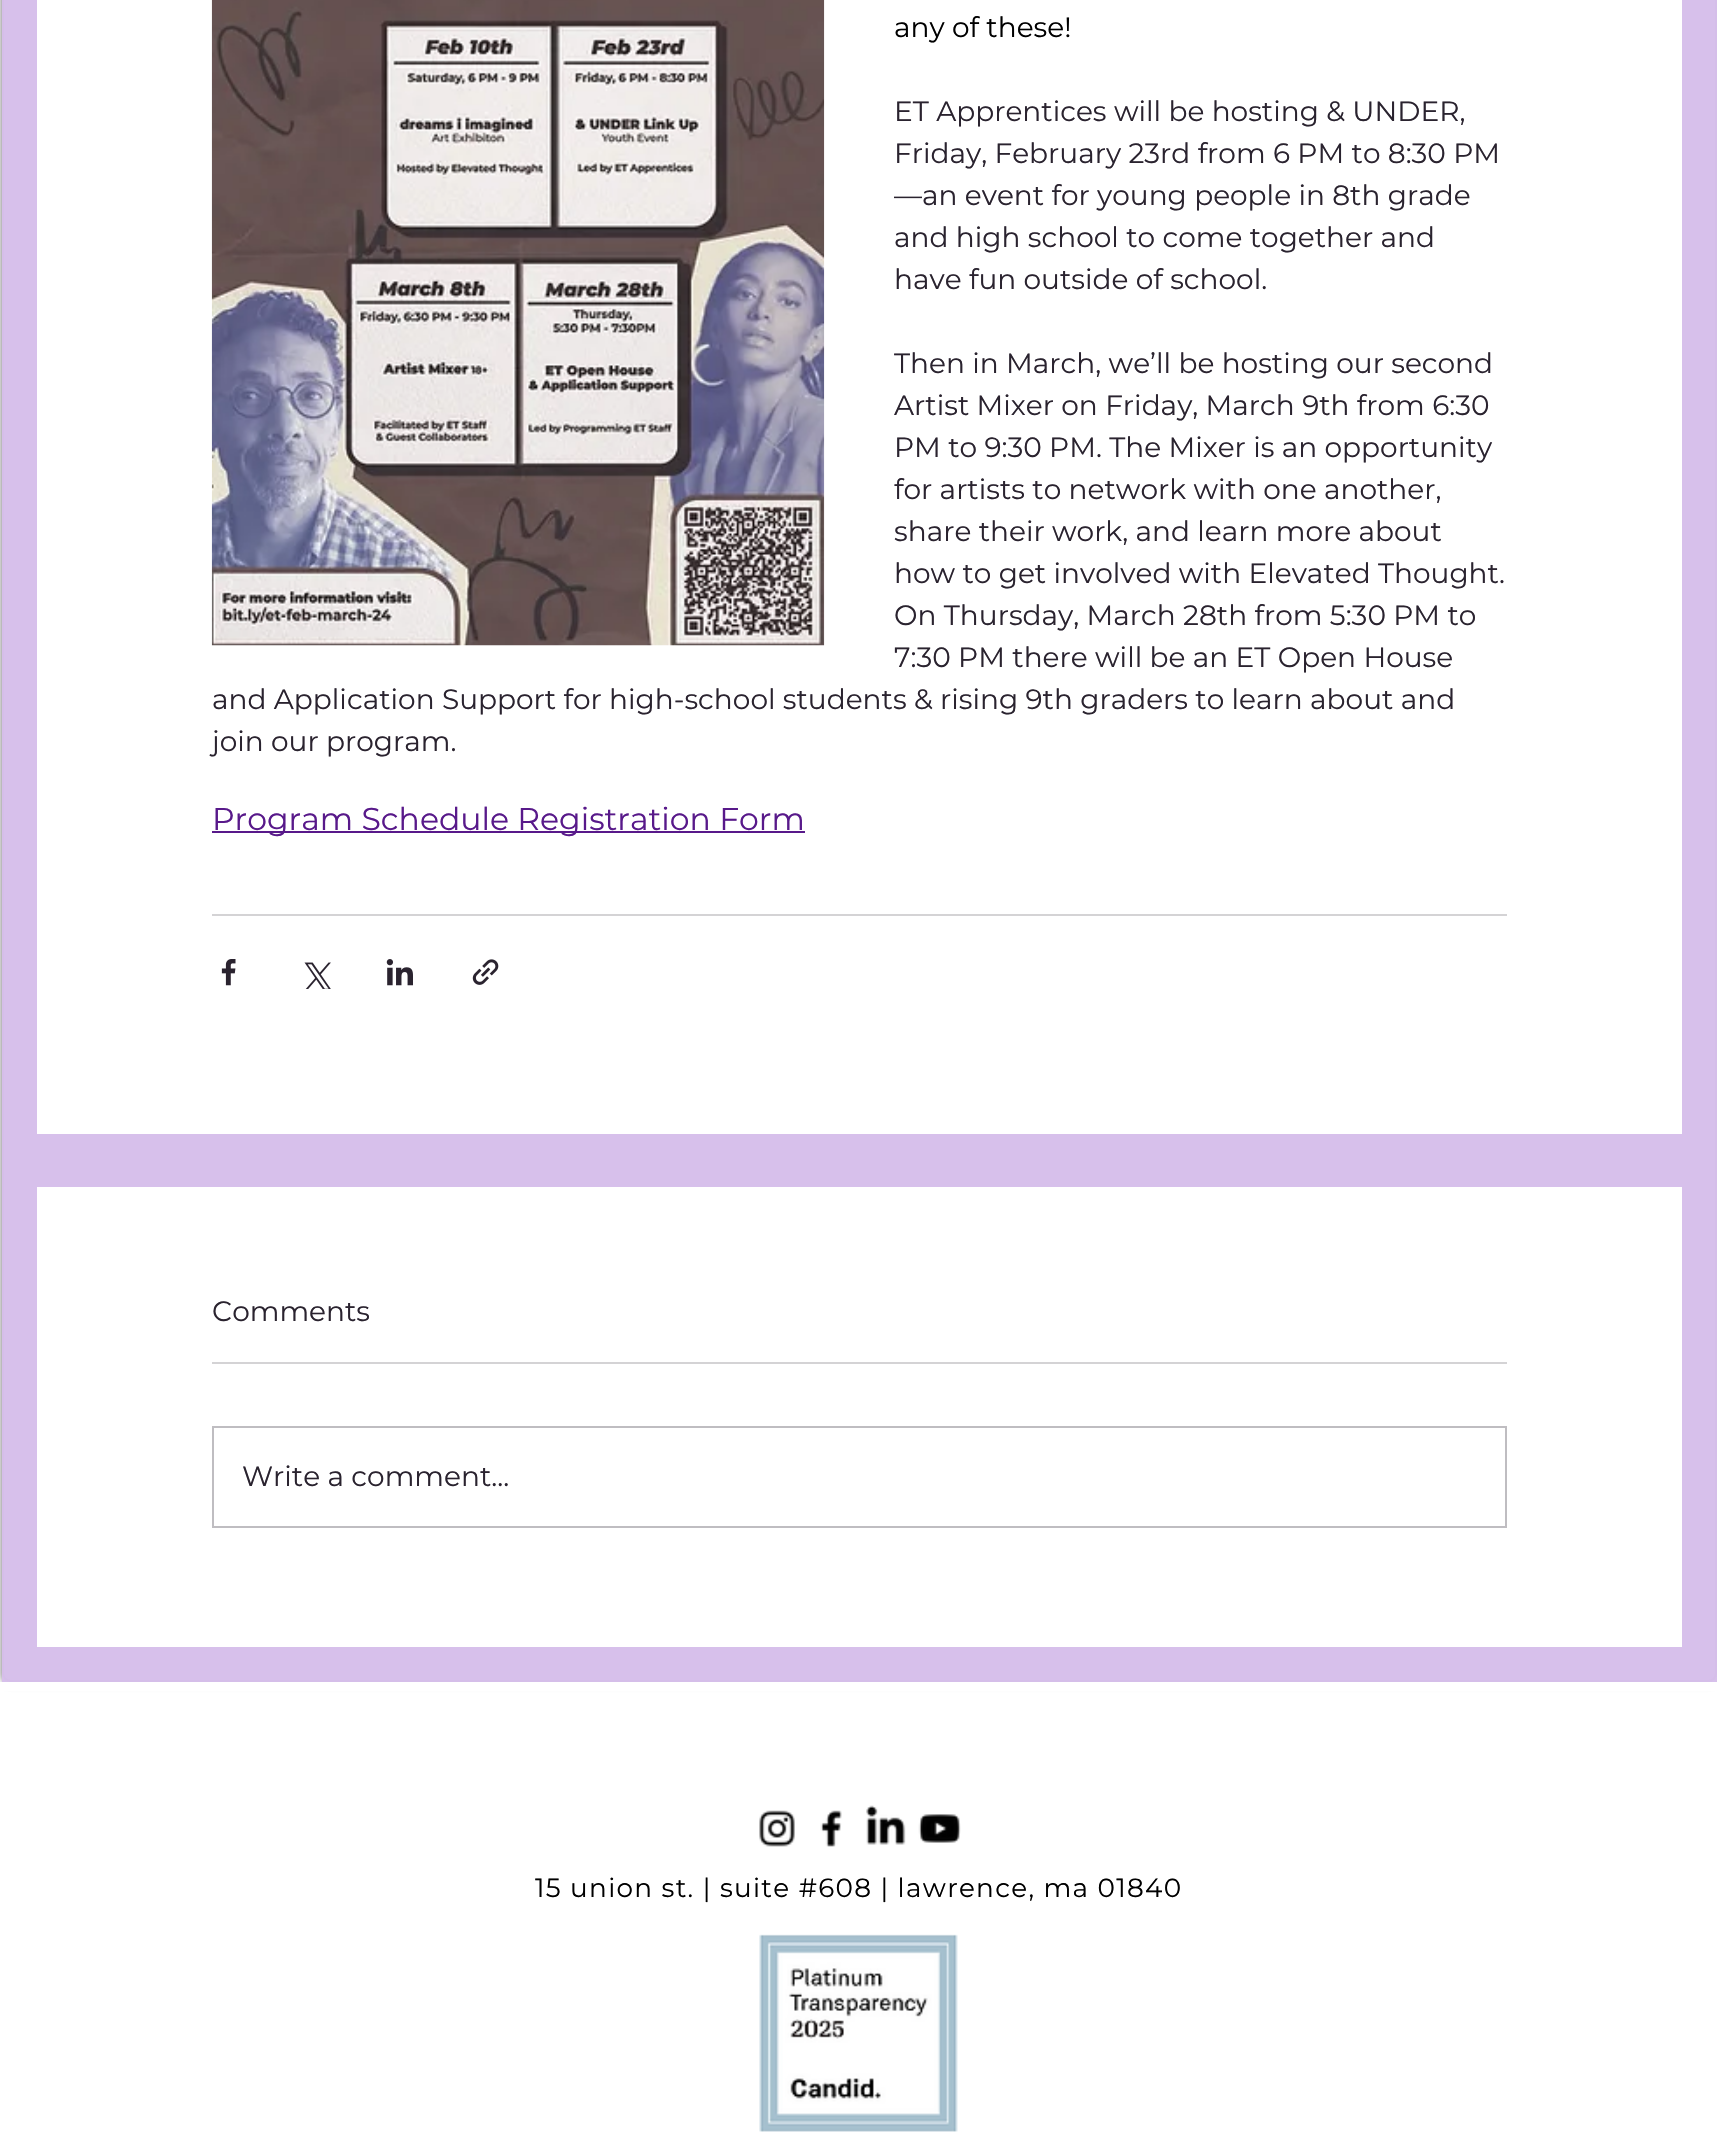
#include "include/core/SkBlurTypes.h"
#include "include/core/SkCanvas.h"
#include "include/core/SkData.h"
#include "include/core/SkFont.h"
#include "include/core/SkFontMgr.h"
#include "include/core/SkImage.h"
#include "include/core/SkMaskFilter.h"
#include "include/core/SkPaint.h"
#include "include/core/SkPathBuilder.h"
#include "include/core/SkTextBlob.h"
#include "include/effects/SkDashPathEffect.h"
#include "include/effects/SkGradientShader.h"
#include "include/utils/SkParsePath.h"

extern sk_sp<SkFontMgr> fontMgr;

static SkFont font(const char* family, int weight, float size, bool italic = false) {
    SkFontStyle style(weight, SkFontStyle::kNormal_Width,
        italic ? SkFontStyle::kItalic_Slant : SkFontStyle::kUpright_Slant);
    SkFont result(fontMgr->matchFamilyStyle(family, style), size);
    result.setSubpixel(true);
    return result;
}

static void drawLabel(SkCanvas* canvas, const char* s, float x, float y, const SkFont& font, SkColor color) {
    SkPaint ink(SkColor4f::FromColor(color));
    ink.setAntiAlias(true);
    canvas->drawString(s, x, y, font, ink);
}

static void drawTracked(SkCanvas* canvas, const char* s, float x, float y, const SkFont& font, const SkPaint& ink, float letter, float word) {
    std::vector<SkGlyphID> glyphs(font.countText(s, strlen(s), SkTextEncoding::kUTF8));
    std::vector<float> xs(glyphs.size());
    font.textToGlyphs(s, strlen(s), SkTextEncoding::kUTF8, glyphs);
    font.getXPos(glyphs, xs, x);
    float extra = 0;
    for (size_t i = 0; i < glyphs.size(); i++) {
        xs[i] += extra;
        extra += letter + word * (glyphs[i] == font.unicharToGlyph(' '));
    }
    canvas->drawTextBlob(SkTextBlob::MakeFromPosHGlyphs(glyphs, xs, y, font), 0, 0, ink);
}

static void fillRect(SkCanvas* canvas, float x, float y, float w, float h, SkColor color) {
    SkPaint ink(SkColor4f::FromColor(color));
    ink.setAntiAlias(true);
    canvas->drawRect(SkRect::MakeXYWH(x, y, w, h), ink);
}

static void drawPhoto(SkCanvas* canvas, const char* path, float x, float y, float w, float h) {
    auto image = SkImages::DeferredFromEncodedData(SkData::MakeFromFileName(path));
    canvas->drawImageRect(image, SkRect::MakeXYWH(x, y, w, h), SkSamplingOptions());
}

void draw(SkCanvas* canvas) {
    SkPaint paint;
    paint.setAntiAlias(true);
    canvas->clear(0xFFFFFFFF);
    paint.setColor(0x99000000);
    paint.setMaskFilter(SkMaskFilter::MakeBlur(kNormal_SkBlurStyle, 3.5f));
    canvas->drawRoundRect(SkRect::MakeXYWH(2, -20, 1715, 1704), 9, 9, paint);
    paint.setMaskFilter(nullptr);
    paint.setColor(0xFFD2C2DD);
    canvas->drawRoundRect(SkRect::MakeXYWH(3, -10, 1713, 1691), 8, 8, paint);
    paint.setStroke(true);
    paint.setStrokeWidth(2);
    paint.setColor(0xFF2A232F);
    canvas->drawRoundRect(SkRect::MakeXYWH(3, -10, 1713, 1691), 8, 8, paint);
    fillRect(canvas, 2, 0, 1715, 1682, 0xFCD7BFEB);
    fillRect(canvas, 37, 0, 1645, 1134, 0xFFFFFFFF);
    drawPhoto(canvas, "assets/img1.png", 211, 0, 614, 646);
    SkFont font1 = font("Montserrat", 400, 28);
    drawLabel(canvas, "any of these!", 894, 37, font1, 0xFF000000);
    drawLabel(canvas, "ET Apprentices will be hosting & UNDER,", 894, 121, font1, 0xFF2A232F);
    drawLabel(canvas, "Friday, February 23rd from 6 PM to 8:30 PM", 894, 163, font1, 0xFF2A232F);
    drawLabel(canvas, "—an event for young people in 8th grade", 894, 205, font1, 0xFF2A232F);
    drawLabel(canvas, "and high school to come together and", 894, 247, font1, 0xFF2A232F);
    drawLabel(canvas, "have fun outside of school.", 894, 289, font1, 0xFF2A232F);
    drawLabel(canvas, "Then in March, we’ll be hosting our second", 894, 373, font1, 0xFF2A232F);
    drawLabel(canvas, "Artist Mixer on Friday, March 9th from 6:30", 894, 415, font1, 0xFF2A232F);
    drawLabel(canvas, "PM to 9:30 PM. The Mixer is an opportunity", 894, 457, font1, 0xFF2A232F);
    drawLabel(canvas, "for artists to network with one another,", 894, 499, font1, 0xFF2A232F);
    drawLabel(canvas, "share their work, and learn more about", 894, 541, font1, 0xFF2A232F);
    drawLabel(canvas, "how to get involved with Elevated Thought.", 894, 583, font1, 0xFF2A232F);
    drawLabel(canvas, "On Thursday, March 28th from 5:30 PM to", 894, 625, font1, 0xFF2A232F);
    drawLabel(canvas, "7:30 PM there will be an ET Open House", 894, 667, font1, 0xFF2A232F);
    drawLabel(canvas, "and Application Support for high-school students & rising 9th graders to learn about and", 212, 709, font1, 0xFF2A232F);
    drawLabel(canvas, "join our program.", 212, 751, font1, 0xFF2A232F);
    fillRect(canvas, 212, 831, 593, 2, 0xFF58198A);
    SkFont font2 = font("Montserrat", 400, 31.5f);
    drawLabel(canvas, "Program Schedule Registration Form", 212, 830, font2, 0xFF58198A);
    fillRect(canvas, 212, 914, 1295, 2, 0xFFD4D3D5);
    drawPhoto(canvas, "assets/img2.png", 221, 959, 15, 27);
    drawPhoto(canvas, "assets/img3.png", 304, 962, 27, 27);
    drawPhoto(canvas, "assets/img4.png", 386, 959, 27, 27);
    drawPhoto(canvas, "assets/img5.png", 472, 959, 27, 26);
    fillRect(canvas, 37, 1187, 1645, 460, 0xFFFFFFFF);
    drawLabel(canvas, "Comments", 212, 1321, font1, 0xFF2A232F);
    fillRect(canvas, 212, 1362, 1295, 2, 0xFFD4D3D5);
    paint.setColor(0xFFBFBDC1);
    canvas->drawRect(SkRect::MakeXYWH(213, 1427, 1293, 100), paint);
    drawLabel(canvas, "Write a comment...", 242, 1486, font1, 0xFF2A232F);
    fillRect(canvas, 0, 1682, 1717, 9, 0xFFFFFFFF);
    drawPhoto(canvas, "assets/img6.png", 759, 1810, 36, 37);
    drawPhoto(canvas, "assets/img7.png", 820, 1810, 22, 37);
    drawPhoto(canvas, "assets/img8.png", 866, 1805, 40, 40);
    drawPhoto(canvas, "assets/img9.png", 918, 1814, 43, 29);
    SkFont font3 = font("Montserrat", 400, 26.25f);
    paint.setStroke(false);
    paint.setColor(0xFF000000);
    drawTracked(canvas, "15 union st. | suite #608 | lawrence, ma 01840", 535, 1897, font3, paint, 1.3f, 0);
    drawPhoto(canvas, "assets/img10.png", 759, 1934, 199, 198);
}
